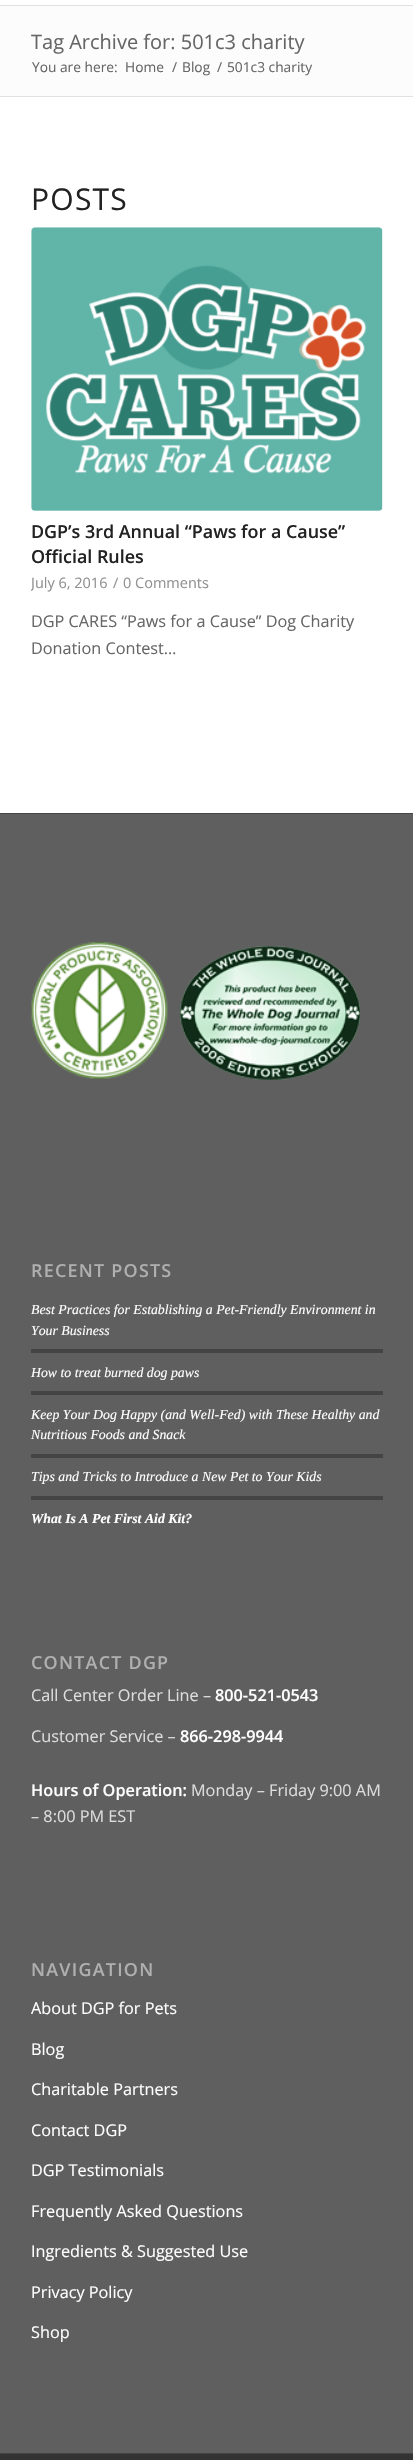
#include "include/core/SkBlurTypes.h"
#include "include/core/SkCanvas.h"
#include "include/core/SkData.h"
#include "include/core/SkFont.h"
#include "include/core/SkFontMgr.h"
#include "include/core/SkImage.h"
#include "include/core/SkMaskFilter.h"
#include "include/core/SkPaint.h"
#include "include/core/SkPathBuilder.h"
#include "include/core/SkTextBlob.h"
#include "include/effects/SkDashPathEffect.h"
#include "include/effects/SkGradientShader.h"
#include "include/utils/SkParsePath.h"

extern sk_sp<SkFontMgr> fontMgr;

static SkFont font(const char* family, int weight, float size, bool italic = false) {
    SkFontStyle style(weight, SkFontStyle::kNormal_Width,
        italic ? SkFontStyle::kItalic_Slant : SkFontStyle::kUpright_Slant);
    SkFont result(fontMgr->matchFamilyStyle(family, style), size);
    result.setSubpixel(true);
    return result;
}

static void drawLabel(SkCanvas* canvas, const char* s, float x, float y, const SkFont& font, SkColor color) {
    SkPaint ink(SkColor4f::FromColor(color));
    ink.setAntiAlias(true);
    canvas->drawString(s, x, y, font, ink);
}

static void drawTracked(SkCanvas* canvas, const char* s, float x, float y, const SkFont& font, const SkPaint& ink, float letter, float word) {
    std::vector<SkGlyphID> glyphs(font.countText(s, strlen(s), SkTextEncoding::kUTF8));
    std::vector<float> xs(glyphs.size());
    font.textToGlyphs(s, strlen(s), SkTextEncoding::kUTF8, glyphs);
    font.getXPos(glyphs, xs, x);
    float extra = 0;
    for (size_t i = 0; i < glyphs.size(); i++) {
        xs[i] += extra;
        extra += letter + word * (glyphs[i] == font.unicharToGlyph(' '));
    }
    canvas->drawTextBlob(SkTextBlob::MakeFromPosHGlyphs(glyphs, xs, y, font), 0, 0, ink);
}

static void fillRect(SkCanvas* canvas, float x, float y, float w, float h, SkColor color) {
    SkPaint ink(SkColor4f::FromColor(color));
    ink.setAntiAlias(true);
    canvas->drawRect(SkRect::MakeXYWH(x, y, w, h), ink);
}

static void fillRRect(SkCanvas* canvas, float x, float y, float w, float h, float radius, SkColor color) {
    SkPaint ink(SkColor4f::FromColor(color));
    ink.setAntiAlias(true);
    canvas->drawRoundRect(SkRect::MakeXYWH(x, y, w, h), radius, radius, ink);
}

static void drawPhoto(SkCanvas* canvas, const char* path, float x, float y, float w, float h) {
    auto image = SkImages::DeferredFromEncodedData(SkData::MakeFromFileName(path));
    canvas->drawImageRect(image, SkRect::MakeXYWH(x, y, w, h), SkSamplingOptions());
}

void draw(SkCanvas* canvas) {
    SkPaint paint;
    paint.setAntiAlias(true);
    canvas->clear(0xFFFFFFFF);
    fillRect(canvas, 0, 5, 413, 1, 0xFFE1E1E1);
    fillRect(canvas, 0, 6, 413, 90, 0xFFFCFCFC);
    SkFont font1 = font("Open Sans", 400, 20);
    drawLabel(canvas, "Tag Archive for: 501c3 charity", 31, 49, font1, 0xFF666666);
    SkFont font2 = font("Open Sans", 400, 13.75f);
    drawLabel(canvas, "You are here:", 32, 72, font2, 0xFF666666);
    drawLabel(canvas, "Home", 125, 72, font2, 0xFF666666);
    drawLabel(canvas, "/", 172, 72, font2, 0xFF666666);
    drawLabel(canvas, "Blog", 182, 72, font2, 0xFF666666);
    drawLabel(canvas, "/", 217, 72, font2, 0xFF666666);
    drawLabel(canvas, "501c3 charity", 227, 72, font2, 0xFF666666);
    fillRect(canvas, 0, 96, 413, 1, 0xFFE1E1E1);
    SkFont font3 = font("Open Sans", 400, 30);
    paint.setColor(0xFF222222);
    drawTracked(canvas, "POSTS", 31, 210, font3, paint, 1.25f, 0);
    fillRRect(canvas, 31, 228, 352, 283, 4, 0xFFFCFCFC);
    drawPhoto(canvas, "assets/img1.png", 31, 227, 352, 284);
    SkFont font4 = font("Open Sans", 600, 17.9f);
    drawLabel(canvas, "DGP’s 3rd Annual “Paws for a Cause”", 31, 538, font4, 0xFF222222);
    drawLabel(canvas, "Official Rules", 31, 563, font4, 0xFF222222);
    canvas->save();
    canvas->clipRect(SkRect::MakeXYWH(31, 228, 352, 510));
    SkFont font5 = font("Open Sans", 400, 14.5f);
    drawLabel(canvas, "July 6, 2016", 31, 588, font5, 0xFF919191);
    canvas->restore();
    drawLabel(canvas, "/", 113, 588, font5, 0xFF919191);
    drawLabel(canvas, "0 Comments", 123, 588, font5, 0xFF919191);
    SkFont font6 = font("Open Sans", 400, 16.25f);
    drawLabel(canvas, "DGP CARES “Paws for a Cause” Dog Charity", 31, 627, font6, 0xFF666666);
    drawLabel(canvas, "Donation Contest…", 31, 654, font6, 0xFF666666);
    fillRect(canvas, 0, 814, 413, 1639, 0xFF5F5F5F);
    fillRect(canvas, 0, 813, 413, 1, 0xFF444444);
    drawPhoto(canvas, "assets/img2.png", 31, 942, 329, 138);
    paint.setColor(0xFFAFAFAF);
    drawTracked(canvas, "RECENT POSTS", 31, 1277, font4, paint, 1.25f, 0);
    SkFont font7 = font("Liberation Serif", 400, 13.8f, true);
    drawLabel(canvas, "Best Practices for Establishing a Pet-Friendly Environment in", 31, 1314, font7, 0xFFFFFFFF);
    drawLabel(canvas, "Your Business", 31, 1335, font7, 0xFFFFFFFF);
    fillRect(canvas, 31, 1349, 352, 4, 0xFF444444);
    drawLabel(canvas, "How to treat burned dog paws", 31, 1377, font7, 0xFFFFFFFF);
    fillRect(canvas, 31, 1391, 352, 4, 0xFF444444);
    drawLabel(canvas, "Keep Your Dog Happy (and Well-Fed) with These Healthy and", 31, 1419, font7, 0xFFFFFFFF);
    drawLabel(canvas, "Nutritious Foods and Snack", 31, 1439, font7, 0xFFFFFFFF);
    fillRect(canvas, 31, 1454, 352, 4, 0xFF444444);
    drawLabel(canvas, "Tips and Tricks to Introduce a New Pet to Your Kids", 31, 1481, font7, 0xFFFFFFFF);
    fillRect(canvas, 31, 1496, 352, 4, 0xFF444444);
    SkFont font8 = font("Liberation Serif", 700, 13.8f, true);
    drawLabel(canvas, "What Is A Pet First Aid Kit?", 31, 1523, font8, 0xFFFFFFFF);
    drawTracked(canvas, "CONTACT DGP", 31, 1669, font4, paint, 1.25f, 0);
    drawLabel(canvas, "Call Center Order Line –", 31, 1701, font6, 0xFFDDDDDD);
    SkFont font9 = font("Open Sans", 600, 16.25f);
    drawLabel(canvas, "800-521-0543", 215, 1701, font9, 0xFFFFFFFF);
    drawLabel(canvas, "Customer Service –", 31, 1742, font6, 0xFFDDDDDD);
    drawLabel(canvas, "866-298-9944", 180, 1742, font9, 0xFFFFFFFF);
    drawLabel(canvas, "Hours of Operation:", 31, 1796, font9, 0xFFFFFFFF);
    drawLabel(canvas, "Monday – Friday 9:00 AM", 191, 1796, font6, 0xFFDDDDDD);
    drawLabel(canvas, "– 8:00 PM EST", 31, 1822, font6, 0xFFDDDDDD);
    drawTracked(canvas, "NAVIGATION", 31, 1976, font4, paint, 1.25f, 0);
    drawLabel(canvas, "About DGP for Pets", 31, 2014, font6, 0xFFFFFFFF);
    drawLabel(canvas, "Blog", 31, 2055, font6, 0xFFFFFFFF);
    drawLabel(canvas, "Charitable Partners", 31, 2095, font6, 0xFFFFFFFF);
    drawLabel(canvas, "Contact DGP", 31, 2136, font6, 0xFFFFFFFF);
    drawLabel(canvas, "DGP Testimonials", 31, 2176, font6, 0xFFFFFFFF);
    drawLabel(canvas, "Frequently Asked Questions", 31, 2217, font6, 0xFFFFFFFF);
    drawLabel(canvas, "Ingredients & Suggested Use", 31, 2257, font6, 0xFFFFFFFF);
    drawLabel(canvas, "Privacy Policy", 31, 2298, font6, 0xFFFFFFFF);
    drawLabel(canvas, "Shop", 31, 2338, font6, 0xFFFFFFFF);
    fillRect(canvas, 0, 2454, 413, 6, 0xFF333333);
    fillRect(canvas, 0, 2453, 413, 1, 0xFF444444);
}
